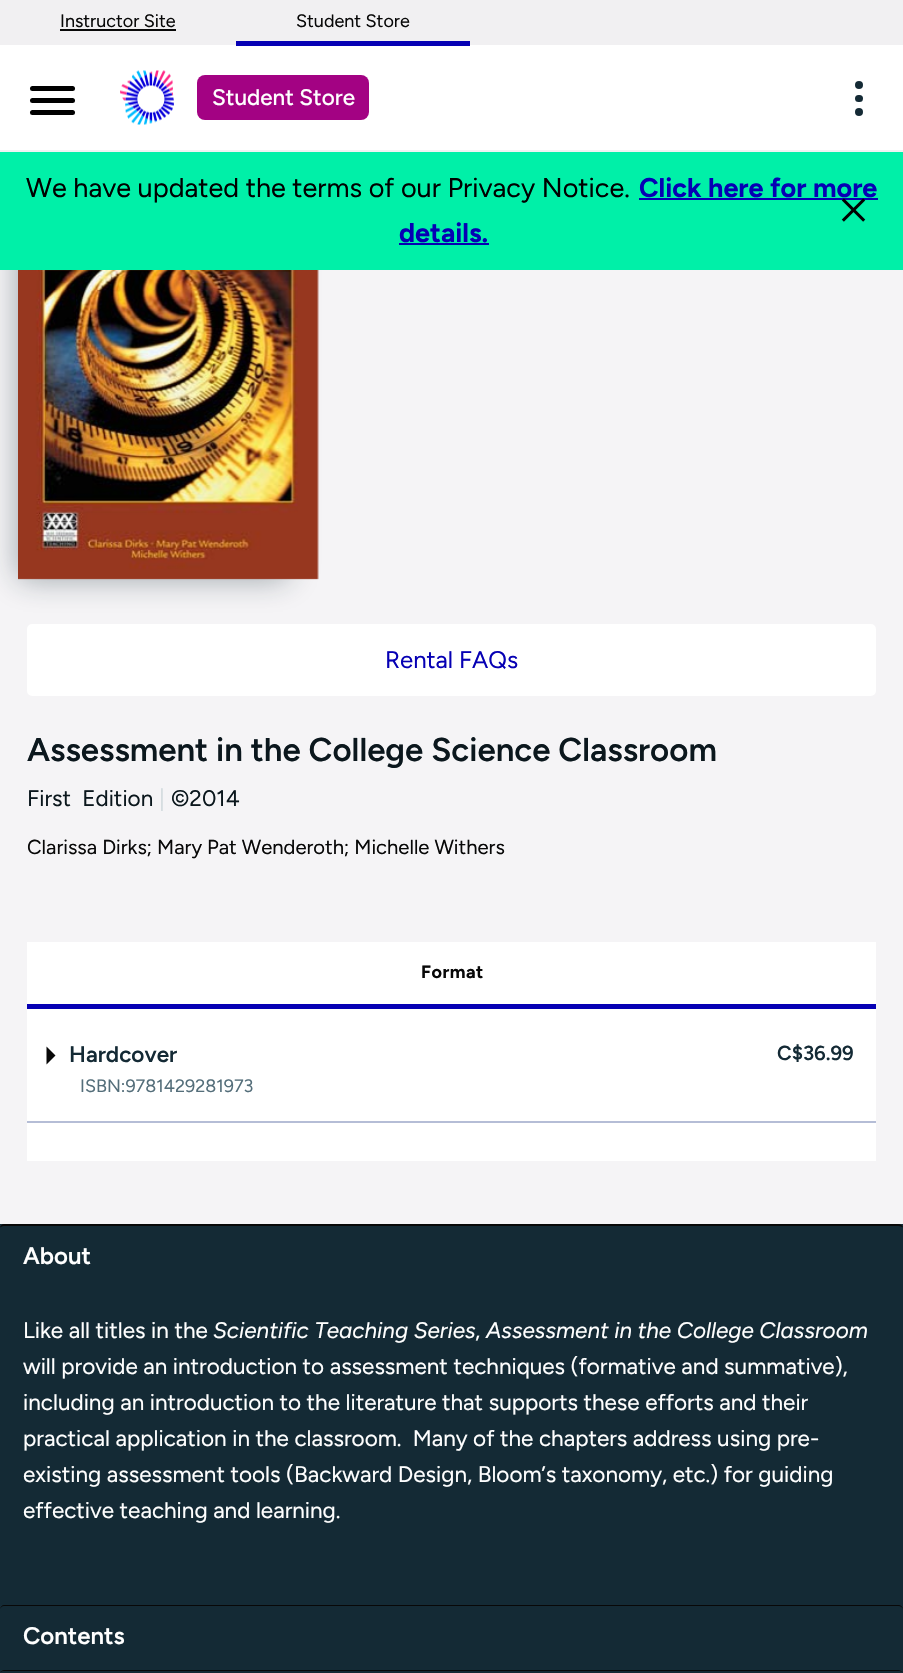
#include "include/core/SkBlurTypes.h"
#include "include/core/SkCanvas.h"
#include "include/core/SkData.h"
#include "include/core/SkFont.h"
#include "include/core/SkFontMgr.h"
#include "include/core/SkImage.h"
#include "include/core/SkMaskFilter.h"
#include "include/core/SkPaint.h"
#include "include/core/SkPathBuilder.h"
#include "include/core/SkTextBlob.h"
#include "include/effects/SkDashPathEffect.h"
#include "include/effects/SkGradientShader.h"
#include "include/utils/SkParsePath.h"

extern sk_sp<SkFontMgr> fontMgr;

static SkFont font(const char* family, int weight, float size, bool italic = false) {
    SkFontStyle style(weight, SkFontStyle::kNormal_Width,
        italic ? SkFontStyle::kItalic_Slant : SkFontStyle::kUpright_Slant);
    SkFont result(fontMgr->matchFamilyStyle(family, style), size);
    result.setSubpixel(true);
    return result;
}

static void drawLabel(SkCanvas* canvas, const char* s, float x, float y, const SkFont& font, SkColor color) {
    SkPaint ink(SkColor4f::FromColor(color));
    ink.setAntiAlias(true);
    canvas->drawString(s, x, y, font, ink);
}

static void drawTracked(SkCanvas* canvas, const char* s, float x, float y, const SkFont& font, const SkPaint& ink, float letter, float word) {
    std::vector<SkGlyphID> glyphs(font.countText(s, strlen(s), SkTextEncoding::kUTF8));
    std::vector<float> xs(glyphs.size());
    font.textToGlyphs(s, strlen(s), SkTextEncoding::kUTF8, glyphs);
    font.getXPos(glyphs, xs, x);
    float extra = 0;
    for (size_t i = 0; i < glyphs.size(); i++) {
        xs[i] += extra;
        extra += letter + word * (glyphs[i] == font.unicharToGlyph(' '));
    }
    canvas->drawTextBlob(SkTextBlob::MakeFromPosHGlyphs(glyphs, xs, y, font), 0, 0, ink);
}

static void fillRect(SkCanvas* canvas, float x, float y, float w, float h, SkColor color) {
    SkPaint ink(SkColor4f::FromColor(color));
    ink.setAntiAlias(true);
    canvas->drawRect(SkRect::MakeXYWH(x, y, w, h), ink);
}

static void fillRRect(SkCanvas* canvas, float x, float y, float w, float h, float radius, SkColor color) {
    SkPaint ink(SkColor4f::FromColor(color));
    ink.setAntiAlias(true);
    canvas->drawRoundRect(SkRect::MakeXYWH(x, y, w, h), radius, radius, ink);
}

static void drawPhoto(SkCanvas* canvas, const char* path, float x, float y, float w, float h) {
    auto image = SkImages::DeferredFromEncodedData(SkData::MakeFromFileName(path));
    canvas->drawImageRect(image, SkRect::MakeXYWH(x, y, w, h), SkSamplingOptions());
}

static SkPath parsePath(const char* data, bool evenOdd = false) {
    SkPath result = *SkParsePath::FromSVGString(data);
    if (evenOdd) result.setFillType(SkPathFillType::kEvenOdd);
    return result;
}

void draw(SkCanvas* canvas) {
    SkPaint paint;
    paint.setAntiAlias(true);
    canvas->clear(0xFFF5F4F6);
    fillRect(canvas, 0, 45, 903, 105, 0xFFFFFFFF);
    fillRect(canvas, 0, 150, 903, 2, 0xFFEFF2F3);
    fillRect(canvas, 0, 0, 903, 45, 0xFFF1F0F2);
    SkFont font1 = font("Figtree", 400, 18);
    drawLabel(canvas, "Instructor Site", 60, 27, font1, 0xFF080808);
    fillRect(canvas, 60, 29, 116, 2, 0xFF080808);
    fillRect(canvas, 236, 41, 234, 5, 0xFF0600B4);
    drawLabel(canvas, "Student Store", 296, 27, font1, 0xFF080808);
    fillRRect(canvas, 30, 86, 45, 5, 2.5f, 0xFF000000);
    fillRRect(canvas, 30, 98, 45, 5, 2.5f, 0xFF000000);
    fillRRect(canvas, 30, 110, 45, 5, 2.5f, 0xFF000000);
    drawPhoto(canvas, "assets/img1.png", 120, 70, 54, 55);
    fillRRect(canvas, 197, 75, 172, 45, 8, 0xFFA30283);
    SkFont font2 = font("Figtree", 500, 22.5f);
    drawLabel(canvas, "Student Store", 212, 105, font2, 0xFFFFFFFF);
    paint.setColor(0xFF142A35);
    canvas->drawCircle(859, 85, 4, paint);
    fillRRect(canvas, 855, 95, 8, 7, 3.5f, 0xFF142A35);
    canvas->drawCircle(859, 112, 4, paint);
    paint.setColor(0x66142A35);
    paint.setMaskFilter(SkMaskFilter::MakeBlur(kNormal_SkBlurStyle, 15));
    canvas->drawRect(SkRect::MakeXYWH(18, 209, 270, 370), paint);
    paint.setMaskFilter(nullptr);
    drawPhoto(canvas, "assets/img2.png", 18, 270, 301, 310);
    paint.setColor(0xFFFFFFFF);
    canvas->drawRoundRect(SkRect::MakeXYWH(28, 625, 847, 70), 4, 4, paint);
    paint.setStroke(true);
    paint.setStrokeWidth(2);
    canvas->drawRoundRect(SkRect::MakeXYWH(28, 625, 847, 70), 4, 4, paint);
    SkFont font3 = font("Figtree", 400, 24);
    drawLabel(canvas, "Rental FAQs", 385, 668, font3, 0xFF0600B4);
    SkFont font4 = font("Figtree", 600, 33);
    drawLabel(canvas, "Assessment in the College Science Classroom", 27, 761, font4, 0xFF0B171D);
    SkFont font5 = font("Figtree", 400, 22.5f);
    drawLabel(canvas, "First  Edition", 27, 806, font5, 0xFF0B171D);
    SkFont font6 = font("Figtree", 300, 22.5f);
    drawLabel(canvas, "|", 159, 806, font6, 0xFFCFD8DC);
    drawLabel(canvas, "©2014", 171, 806, font5, 0xFF0B171D);
    SkFont font7 = font("Figtree", 400, 20.25f);
    drawLabel(canvas, "Clarissa Dirks; Mary Pat Wenderoth; Michelle Withers", 27, 854, font7, 0xFF080808);
    fillRect(canvas, 27, 942, 849, 219, 0xFFFFFFFF);
    fillRect(canvas, 27, 1004, 849, 5, 0xFF0600B4);
    SkFont font8 = font("Figtree", 700, 18);
    paint.setStroke(false);
    paint.setColor(0xFF080808);
    drawTracked(canvas, "Format", 421, 978, font8, paint, 0.5f, 0);
    fillRect(canvas, 27, 1121, 849, 2, 0xFFB5BDD6);
    canvas->drawPath(parsePath("M46.5 1064.5V1046.5L55.5 1055.5Z"), paint);
    SkFont font9 = font("Figtree", 600, 22.5f);
    drawLabel(canvas, "Hardcover", 69, 1062, font9, 0xFF142A35);
    SkFont font10 = font("Figtree", 600, 20.25f);
    drawLabel(canvas, "C$36.99", 777, 1060, font10, 0xFF142A35);
    drawLabel(canvas, "ISBN:9781429281973", 80, 1092, font1, 0xFF546E7A);
    fillRect(canvas, 0, 1224, 903, 449, 0xFF142A35);
    canvas->drawPath(parsePath("M4 1224C2 1224 0 1226 0 1228C0 1227 2 1226 4 1226H898C901 1226 903 1227 903 1228C903 1226 901 1224 898 1224Z"), paint);
    SkFont font11 = font("Figtree", 600, 24);
    drawLabel(canvas, "About", 23, 1264, font11, 0xFFFFFFFF);
    drawLabel(canvas, "Like all titles in the", 23, 1338, font5, 0xFFFFFFFF);
    SkFont font12 = font("Figtree", 400, 22.5f, true);
    drawLabel(canvas, "Scientific Teaching Series", 213, 1338, font12, 0xFFFFFFFF);
    drawLabel(canvas, ",", 475, 1338, font5, 0xFFFFFFFF);
    drawLabel(canvas, "Assessment in the College Classroom", 486, 1338, font12, 0xFFFFFFFF);
    drawLabel(canvas, "will provide an introduction to assessment techniques (formative and summative),", 23, 1374, font5, 0xFFFFFFFF);
    drawLabel(canvas, "including an introduction to the literature that supports these efforts and their", 23, 1410, font5, 0xFFFFFFFF);
    drawLabel(canvas, "practical application in the classroom.  Many of the chapters address using pre-", 23, 1446, font5, 0xFFFFFFFF);
    drawLabel(canvas, "existing assessment tools (Backward Design, Bloom’s taxonomy, etc.) for guiding", 23, 1482, font5, 0xFFFFFFFF);
    drawLabel(canvas, "effective teaching and learning.", 23, 1518, font5, 0xFFFFFFFF);
    canvas->drawPath(parsePath("M4 1605C2 1605 0 1607 0 1610C0 1608 2 1606 4 1606H898C901 1606 903 1608 903 1610C903 1607 901 1605 898 1605Z"), paint);
    drawLabel(canvas, "Contents", 23, 1644, font11, 0xFFFFFFFF);
    canvas->drawPath(parsePath("M4 1670C2 1670 0 1672 0 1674C0 1672 2 1671 4 1671H898C901 1671 903 1672 903 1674C903 1672 901 1670 898 1670Z"), paint);
    fillRect(canvas, 0, 152, 903, 118, 0xFF00F0A8);
    SkFont font13 = font("Figtree", 400, 27);
    drawLabel(canvas, "We have updated the terms of our Privacy Notice.", 26, 197, font13, 0xFF000000);
    SkFont font14 = font("Figtree", 700, 27);
    drawLabel(canvas, "Click here for more", 639, 197, font14, 0xFF0600B4);
    fillRect(canvas, 639, 198, 239, 2, 0xFF0600B4);
    drawLabel(canvas, "details.", 399, 242, font14, 0xFF0600B4);
    fillRect(canvas, 399, 243, 90, 2, 0xFF0600B4);
    drawPhoto(canvas, "assets/img3.png", 841, 198, 25, 24);
}
